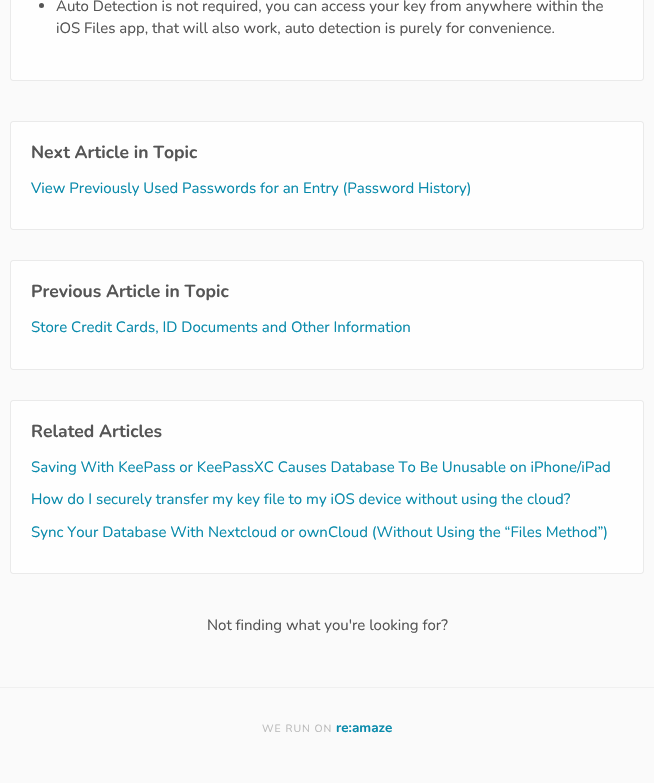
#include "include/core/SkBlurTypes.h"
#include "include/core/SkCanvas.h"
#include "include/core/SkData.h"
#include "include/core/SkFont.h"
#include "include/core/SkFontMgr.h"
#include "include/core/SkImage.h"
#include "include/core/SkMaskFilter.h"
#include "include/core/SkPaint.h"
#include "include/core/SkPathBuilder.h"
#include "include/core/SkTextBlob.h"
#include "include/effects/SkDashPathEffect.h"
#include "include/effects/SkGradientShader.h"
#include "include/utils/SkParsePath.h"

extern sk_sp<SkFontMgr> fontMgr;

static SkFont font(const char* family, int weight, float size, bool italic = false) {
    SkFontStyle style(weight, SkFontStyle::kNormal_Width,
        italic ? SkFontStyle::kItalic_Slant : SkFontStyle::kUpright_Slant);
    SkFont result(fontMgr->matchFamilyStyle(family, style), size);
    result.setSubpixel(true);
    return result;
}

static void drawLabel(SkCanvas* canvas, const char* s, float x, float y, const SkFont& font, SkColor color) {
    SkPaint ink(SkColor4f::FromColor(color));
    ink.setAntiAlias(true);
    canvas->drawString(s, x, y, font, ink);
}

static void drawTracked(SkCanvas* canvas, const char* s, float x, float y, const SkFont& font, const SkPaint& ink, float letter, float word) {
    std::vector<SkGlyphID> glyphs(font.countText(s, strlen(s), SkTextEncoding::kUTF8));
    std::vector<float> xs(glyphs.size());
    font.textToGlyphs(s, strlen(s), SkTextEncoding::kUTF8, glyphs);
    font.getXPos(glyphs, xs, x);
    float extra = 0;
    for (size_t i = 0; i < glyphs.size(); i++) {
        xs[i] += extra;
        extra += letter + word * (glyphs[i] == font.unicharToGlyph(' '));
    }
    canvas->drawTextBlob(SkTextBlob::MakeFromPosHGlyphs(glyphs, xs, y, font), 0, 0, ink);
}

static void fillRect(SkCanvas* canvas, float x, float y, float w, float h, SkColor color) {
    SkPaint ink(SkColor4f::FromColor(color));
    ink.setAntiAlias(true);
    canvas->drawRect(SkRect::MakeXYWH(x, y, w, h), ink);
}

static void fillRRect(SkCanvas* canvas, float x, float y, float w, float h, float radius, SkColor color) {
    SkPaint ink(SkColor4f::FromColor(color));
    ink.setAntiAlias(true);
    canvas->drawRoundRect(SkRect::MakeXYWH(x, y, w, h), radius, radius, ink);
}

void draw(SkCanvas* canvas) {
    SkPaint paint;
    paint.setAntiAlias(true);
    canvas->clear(0xFFFAFAFA);
    fillRRect(canvas, 10, -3, 634, 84, 3, 0xFFFEFEFE);
    paint.setStroke(true);
    paint.setStrokeWidth(1);
    paint.setColor(0x14000000);
    canvas->drawRoundRect(SkRect::MakeXYWH(10.5f, -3.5f, 633, 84), 2.5f, 2.5f, paint);
    paint.setStroke(false);
    paint.setColor(0xFF555555);
    canvas->drawCircle(41.5f, 5.5f, 2.5f, paint);
    SkFont font1 = font("Nunito", 400, 15);
    drawLabel(canvas, "Auto Detection is not required, you can access your key from anywhere within the", 56, 11, font1, 0xFF555555);
    drawLabel(canvas, "iOS Files app, that will also work, auto detection is purely for convenience.", 56, 33, font1, 0xFF555555);
    fillRRect(canvas, 10, 121, 634, 109, 3, 0xFFFEFEFE);
    paint.setStroke(true);
    paint.setColor(0x14000000);
    canvas->drawRoundRect(SkRect::MakeXYWH(10.5f, 121.5f, 633, 108), 2.5f, 2.5f, paint);
    SkFont font2 = font("Nunito", 700, 17.5f);
    drawLabel(canvas, "Next Article in Topic", 31, 158, font2, 0xFF555555);
    drawLabel(canvas, "View Previously Used Passwords for an Entry (Password History)", 31, 193, font1, 0xFF088AAB);
    fillRRect(canvas, 10, 260, 634, 110, 3, 0xFFFEFEFE);
    canvas->drawRoundRect(SkRect::MakeXYWH(10.5f, 260.5f, 633, 109), 2.5f, 2.5f, paint);
    drawLabel(canvas, "Previous Article in Topic", 31, 297, font2, 0xFF555555);
    drawLabel(canvas, "Store Credit Cards, ID Documents and Other Information", 31, 332, font1, 0xFF088AAB);
    fillRRect(canvas, 10, 400, 634, 174, 3, 0xFFFEFEFE);
    canvas->drawRoundRect(SkRect::MakeXYWH(10.5f, 400.5f, 633, 173), 2.5f, 2.5f, paint);
    drawLabel(canvas, "Related Articles", 31, 437, font2, 0xFF555555);
    drawLabel(canvas, "Saving With KeePass or KeePassXC Causes Database To Be Unusable on iPhone/iPad", 31, 472, font1, 0xFF088AAB);
    drawLabel(canvas, "How do I securely transfer my key file to my iOS device without using the cloud?", 31, 504, font1, 0xFF088AAB);
    drawLabel(canvas, "Sync Your Database With Nextcloud or ownCloud (Without Using the “Files Method”)", 31, 537, font1, 0xFF088AAB);
    drawLabel(canvas, "Not finding what you're looking for?", 207, 630, font1, 0xFF555555);
    fillRect(canvas, 0, 687, 654, 1, 0xFFF0F0F0);
    SkFont font3 = font("Nunito", 400, 10.5f);
    paint.setStroke(false);
    paint.setColor(0xFFBBBBBB);
    drawTracked(canvas, "WE RUN ON", 262, 732, font3, paint, 1, 0);
    SkFont font4 = font("Nunito", 700, 13.5f);
    drawLabel(canvas, "re:amaze", 336, 732, font4, 0xFF088AAB);
}
